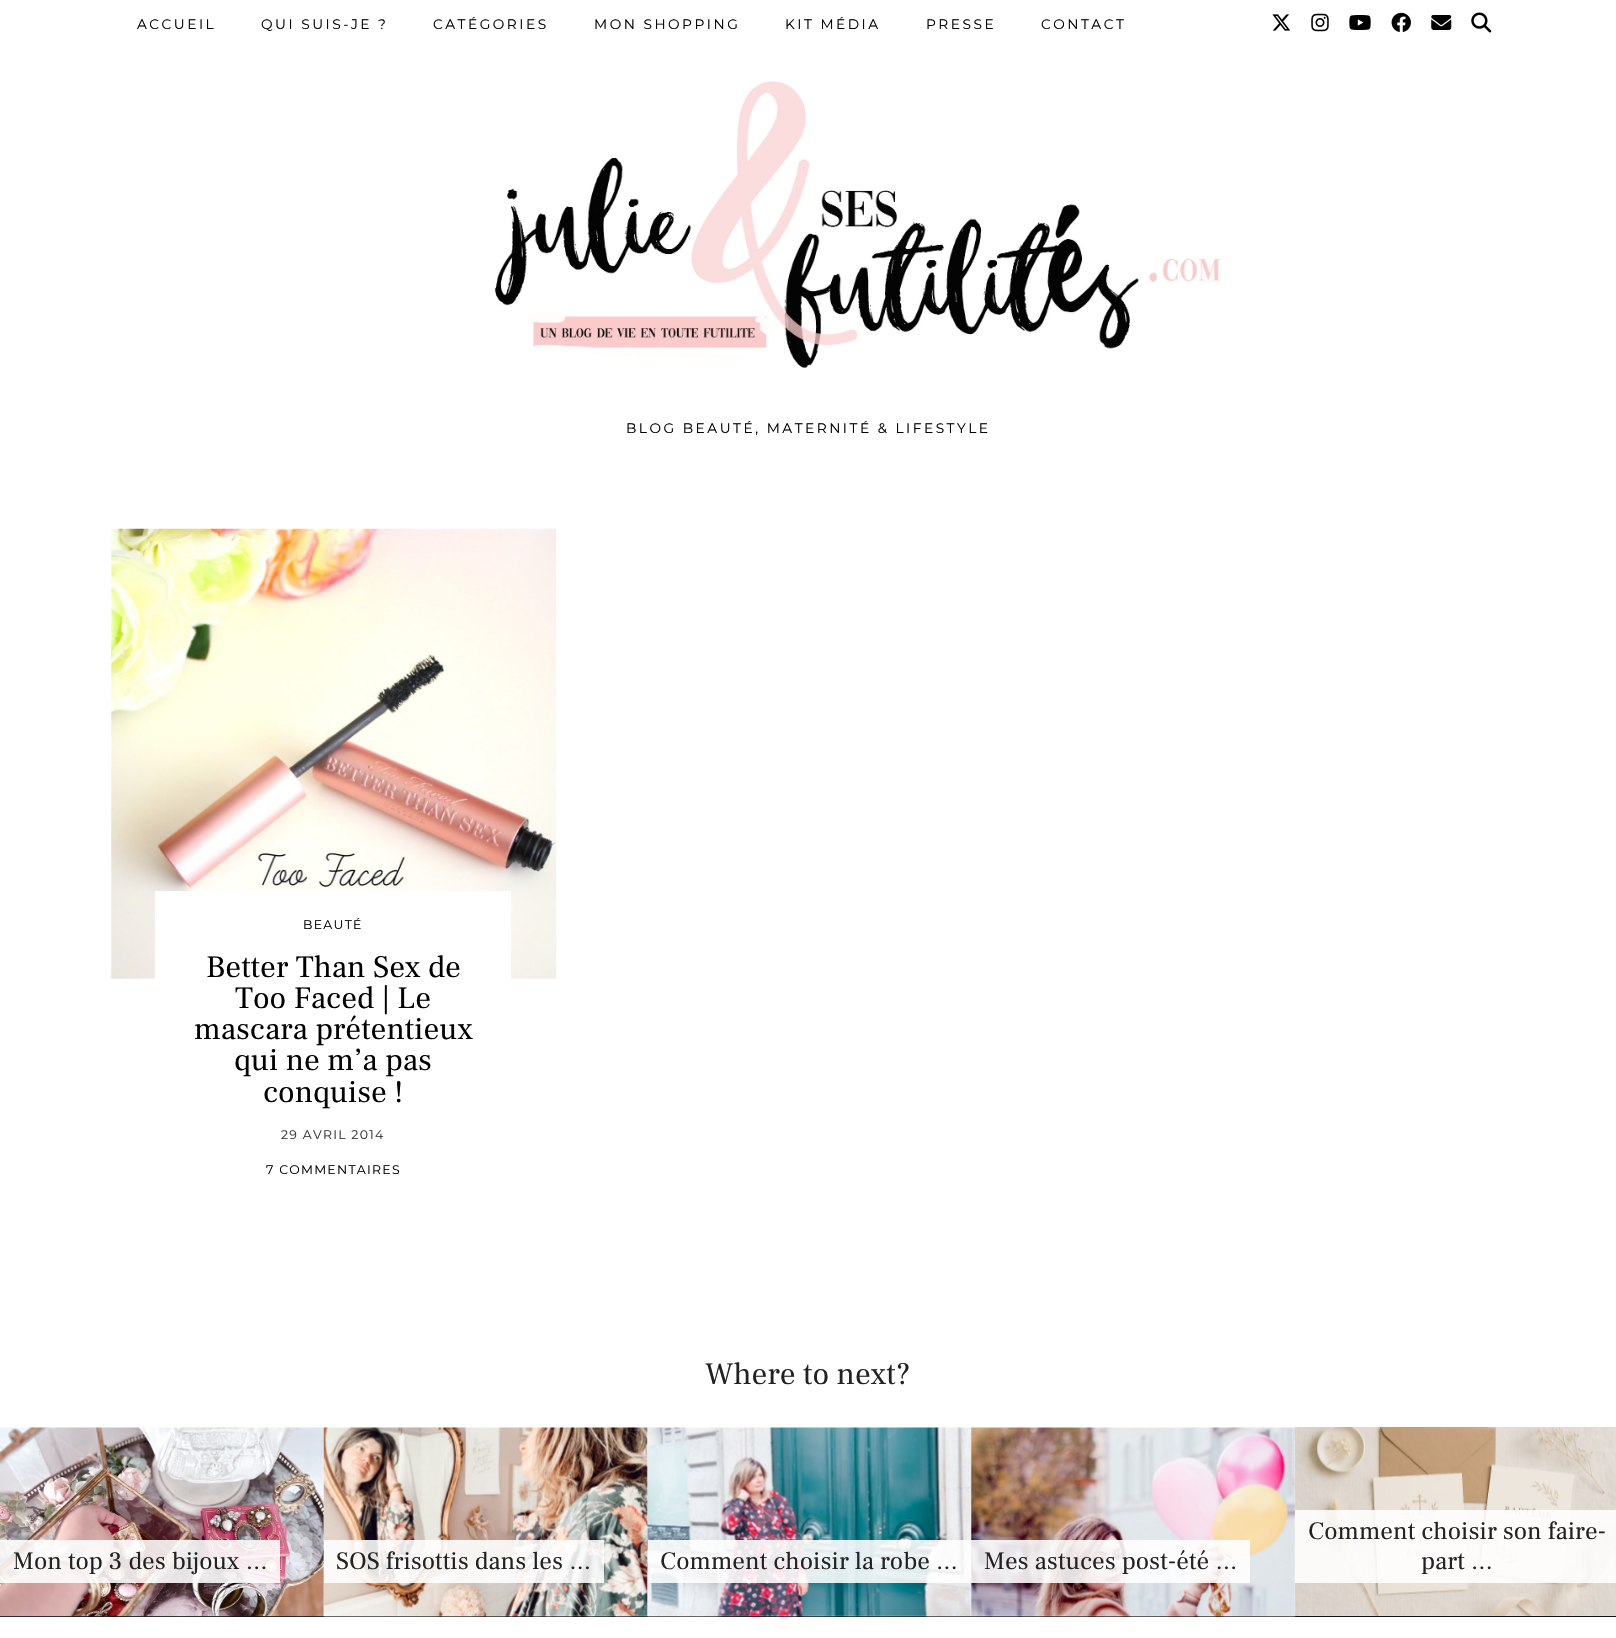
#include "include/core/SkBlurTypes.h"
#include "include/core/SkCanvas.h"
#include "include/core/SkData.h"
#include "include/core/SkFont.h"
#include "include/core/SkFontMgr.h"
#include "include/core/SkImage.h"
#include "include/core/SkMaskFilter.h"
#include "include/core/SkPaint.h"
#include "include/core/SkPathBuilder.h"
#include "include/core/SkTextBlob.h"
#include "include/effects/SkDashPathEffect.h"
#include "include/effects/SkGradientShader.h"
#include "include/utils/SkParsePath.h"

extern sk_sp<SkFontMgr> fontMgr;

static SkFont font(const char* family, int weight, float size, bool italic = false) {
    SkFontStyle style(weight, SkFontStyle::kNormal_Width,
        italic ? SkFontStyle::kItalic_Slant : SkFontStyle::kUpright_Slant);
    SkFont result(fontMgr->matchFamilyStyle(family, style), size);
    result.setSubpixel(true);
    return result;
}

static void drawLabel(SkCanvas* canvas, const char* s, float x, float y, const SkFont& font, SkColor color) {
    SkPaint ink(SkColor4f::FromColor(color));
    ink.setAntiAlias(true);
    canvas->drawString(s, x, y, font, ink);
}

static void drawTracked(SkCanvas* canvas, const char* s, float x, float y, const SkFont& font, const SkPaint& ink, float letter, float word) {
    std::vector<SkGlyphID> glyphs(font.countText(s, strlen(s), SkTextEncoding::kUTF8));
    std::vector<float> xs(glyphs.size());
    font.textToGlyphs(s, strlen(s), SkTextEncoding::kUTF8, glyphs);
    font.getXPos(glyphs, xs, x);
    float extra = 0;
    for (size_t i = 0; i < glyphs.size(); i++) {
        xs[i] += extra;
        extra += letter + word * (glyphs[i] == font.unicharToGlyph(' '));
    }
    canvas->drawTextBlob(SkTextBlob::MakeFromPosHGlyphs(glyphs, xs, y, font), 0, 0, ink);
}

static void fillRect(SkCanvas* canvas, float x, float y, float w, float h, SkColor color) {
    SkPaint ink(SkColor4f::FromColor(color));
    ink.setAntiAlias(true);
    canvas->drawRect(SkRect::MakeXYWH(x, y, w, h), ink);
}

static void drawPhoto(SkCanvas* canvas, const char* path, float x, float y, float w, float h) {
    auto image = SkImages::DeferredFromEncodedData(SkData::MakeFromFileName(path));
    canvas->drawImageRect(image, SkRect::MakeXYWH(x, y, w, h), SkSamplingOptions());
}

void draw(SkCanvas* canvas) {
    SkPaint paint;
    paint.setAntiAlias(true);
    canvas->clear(0xFFFFFFFF);
    SkFont font1 = font("Montserrat", 100, 13.75f);
    paint.setColor(0xFF000000);
    drawTracked(canvas, "ACCUEIL", 137, 29, font1, paint, 2.5f, 0);
    drawTracked(canvas, "QUI SUIS-JE ?", 261, 29, font1, paint, 2.5f, 0);
    drawTracked(canvas, "CATÉGORIES", 433, 29, font1, paint, 2.5f, 0);
    drawTracked(canvas, "MON SHOPPING", 594, 29, font1, paint, 2.5f, 0);
    drawTracked(canvas, "KIT MÉDIA", 785, 29, font1, paint, 2.5f, 0);
    drawTracked(canvas, "PRESSE", 926, 29, font1, paint, 2.5f, 0);
    drawTracked(canvas, "CONTACT", 1041, 29, font1, paint, 2.5f, 0);
    drawPhoto(canvas, "assets/img1.png", 1272, 14, 19, 17);
    drawPhoto(canvas, "assets/img2.png", 1311, 13, 18, 19);
    drawPhoto(canvas, "assets/img3.png", 1349, 15, 22, 15);
    drawPhoto(canvas, "assets/img4.png", 1391, 12, 20, 20);
    drawPhoto(canvas, "assets/img5.png", 1431, 15, 21, 15);
    drawPhoto(canvas, "assets/img6.png", 1471, 12, 21, 21);
    drawPhoto(canvas, "assets/img7.png", 494, 81, 727, 287);
    drawTracked(canvas, "BLOG BEAUTÉ, MATERNITÉ & LIFESTYLE", 626, 433, font1, paint, 2.5f, 0);
    drawPhoto(canvas, "assets/img8.png", 111, 528, 446, 451);
    fillRect(canvas, 155, 891, 356, 88, 0xFFFFFFFF);
    SkFont font2 = font("Montserrat", 100, 12.5f);
    drawTracked(canvas, "BEAUTÉ", 303, 929, font2, paint, 1.25f, 0);
    SkFont font3 = font("Frank Ruhl Libre", 400, 31.25f);
    drawLabel(canvas, "Better Than Sex de", 206, 977, font3, 0xFF000000);
    drawLabel(canvas, "Too Faced | Le", 235, 1008, font3, 0xFF000000);
    drawLabel(canvas, "mascara prétentieux", 194, 1039, font3, 0xFF000000);
    drawLabel(canvas, "qui ne m’a pas", 234, 1070, font3, 0xFF000000);
    drawLabel(canvas, "conquise !", 263, 1102, font3, 0xFF000000);
    paint.setColor(0xFF333333);
    drawTracked(canvas, "29 AVRIL 2014", 281, 1139, font2, paint, 1.25f, 0);
    paint.setColor(0xFF000000);
    drawTracked(canvas, "7 COMMENTAIRES", 266, 1174, font2, paint, 1.25f, 0);
    drawLabel(canvas, "Where to next?", 705, 1384, font3, 0xFF222222);
    fillRect(canvas, 0, 1616, 1616, 1, 0xFF111111);
    drawPhoto(canvas, "assets/img9.png", 0, 1427, 324, 190);
    fillRect(canvas, 0, 1540, 280, 43, 0xE0FFFFFF);
    SkFont font4 = font("Frank Ruhl Libre", 400, 25);
    drawLabel(canvas, "Mon top 3 des bijoux …", 13, 1569, font4, 0xFF222222);
    drawPhoto(canvas, "assets/img10.png", 323, 1427, 325, 190);
    fillRect(canvas, 324, 1540, 280, 43, 0xE0FFFFFF);
    drawLabel(canvas, "SOS frisottis dans les …", 336, 1569, font4, 0xFF222222);
    drawPhoto(canvas, "assets/img11.png", 647, 1427, 325, 190);
    fillRect(canvas, 648, 1540, 323, 43, 0xE0FFFFFF);
    drawLabel(canvas, "Comment choisir la robe …", 660, 1569, font4, 0xFF222222);
    drawPhoto(canvas, "assets/img12.png", 971, 1427, 325, 190);
    fillRect(canvas, 971, 1540, 279, 43, 0xE0FFFFFF);
    drawLabel(canvas, "Mes astuces post-été …", 984, 1569, font4, 0xFF222222);
    drawPhoto(canvas, "assets/img13.png", 1295, 1427, 321, 189);
    fillRect(canvas, 1295, 1510, 321, 73, 0xE0FFFFFF);
    drawLabel(canvas, "Comment choisir son faire-", 1308, 1539, font4, 0xFF222222);
    drawLabel(canvas, "part …", 1421, 1569, font4, 0xFF222222);
}
